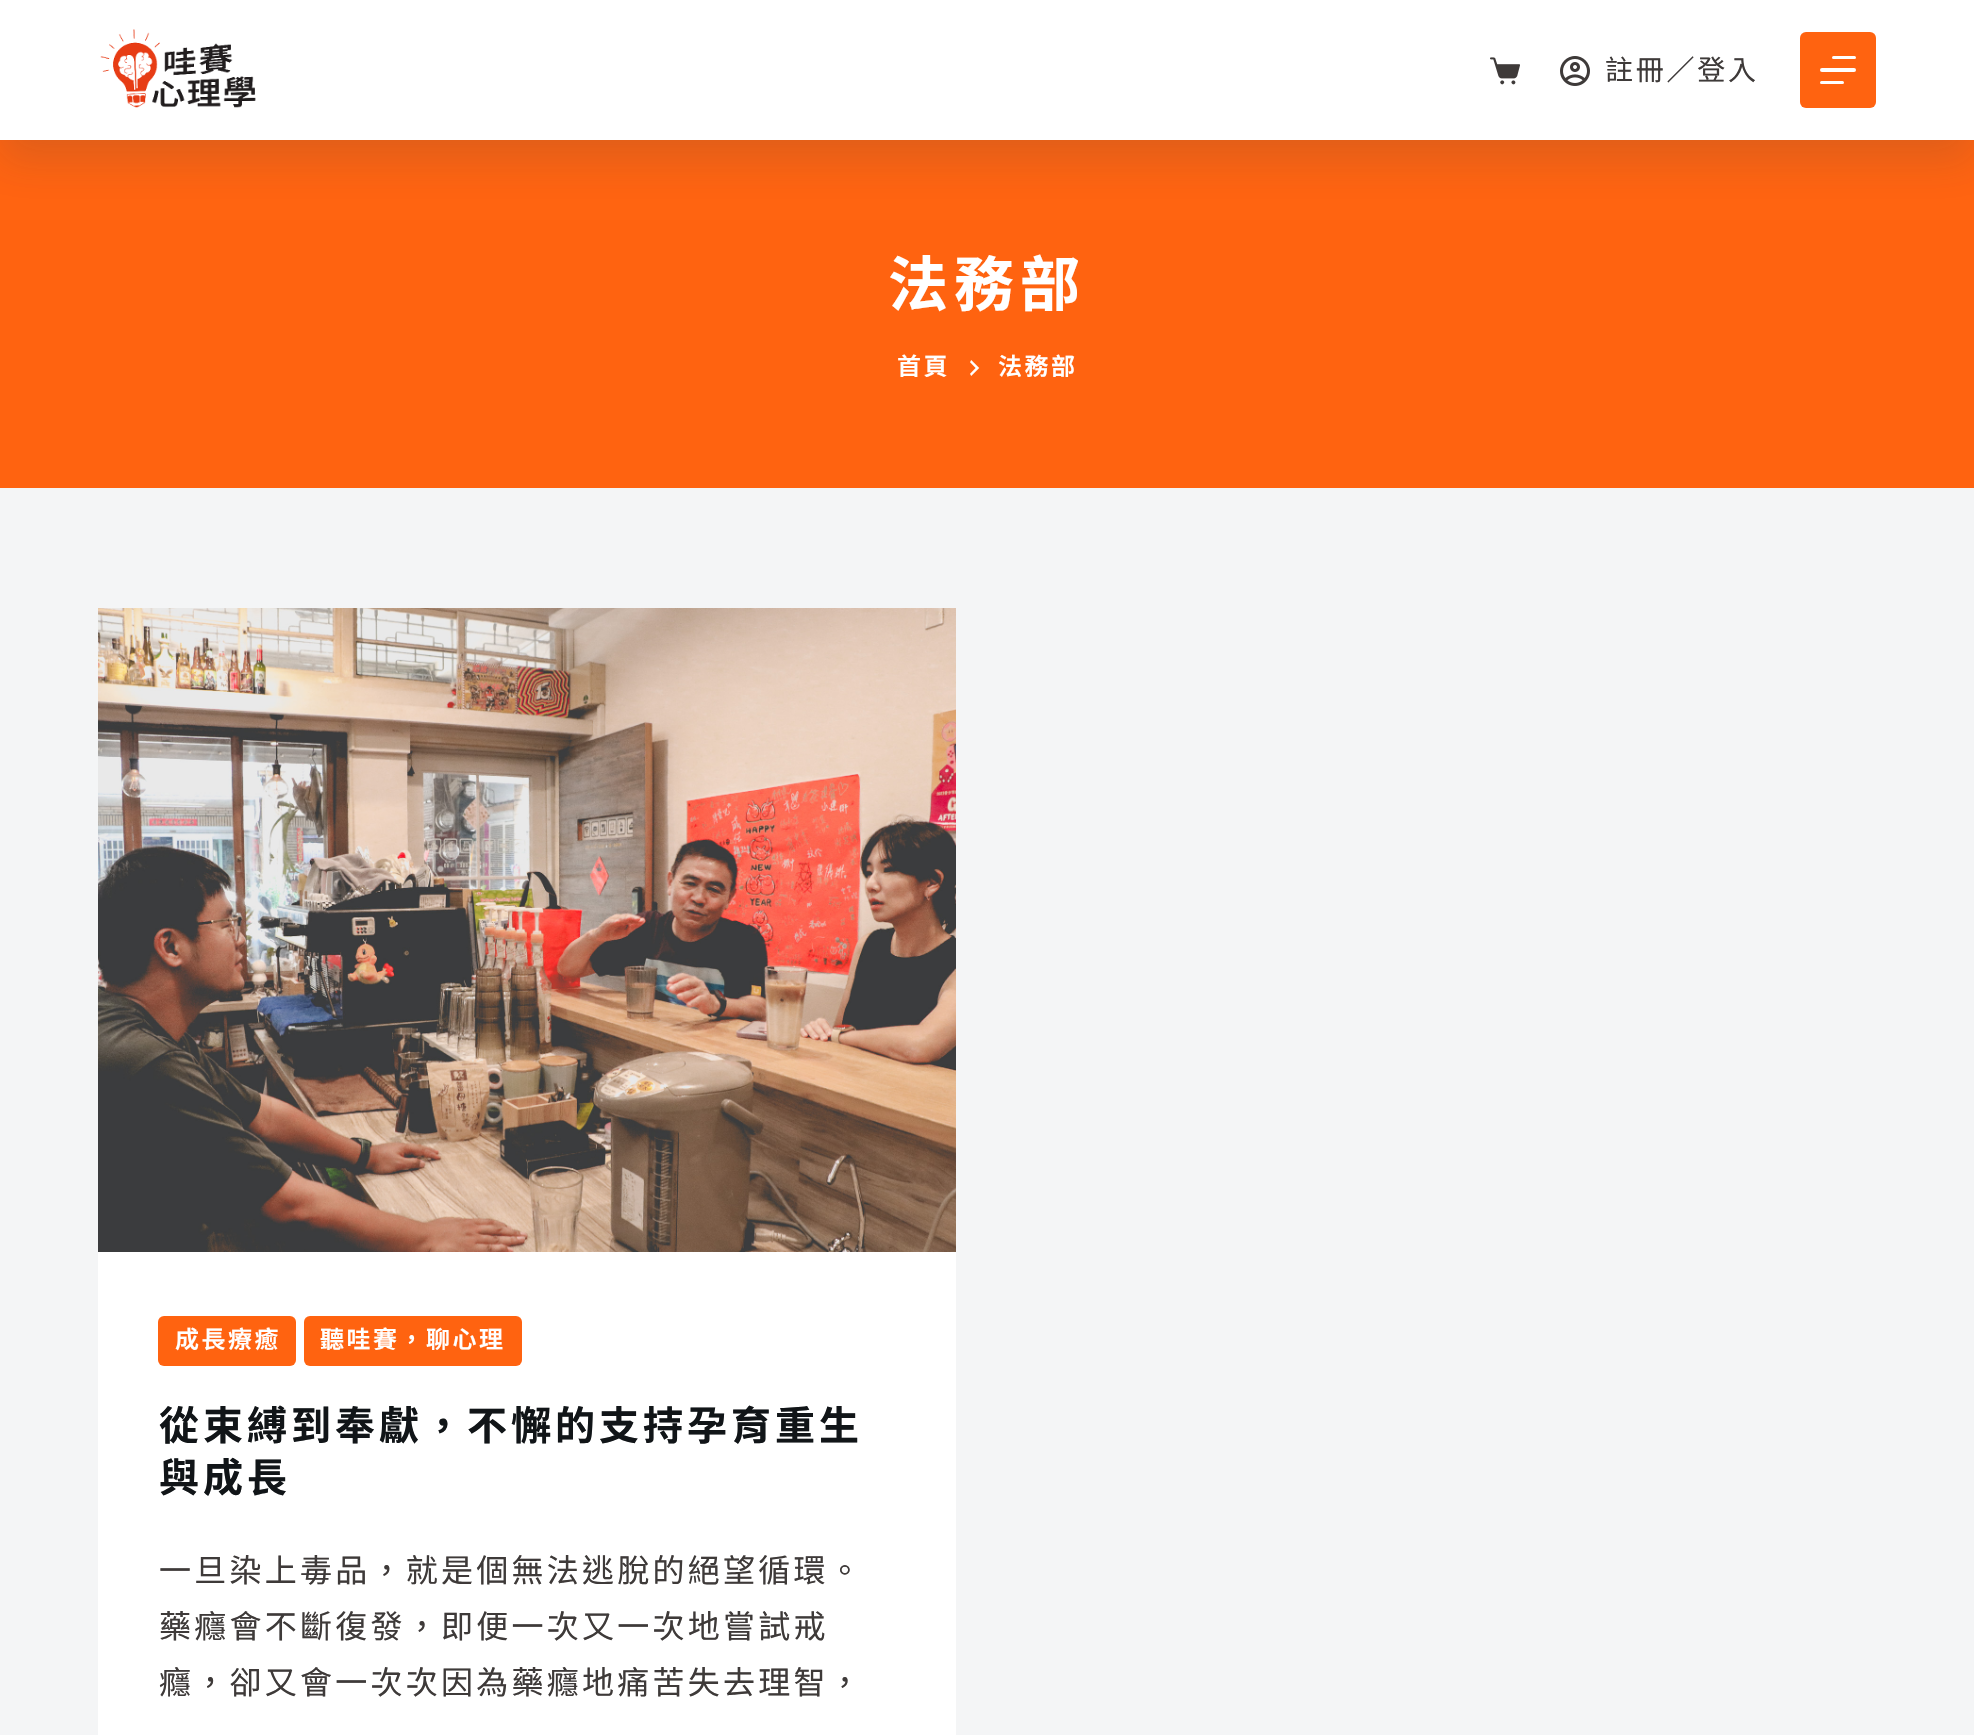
#include "include/core/SkBlurTypes.h"
#include "include/core/SkCanvas.h"
#include "include/core/SkData.h"
#include "include/core/SkFont.h"
#include "include/core/SkFontMgr.h"
#include "include/core/SkImage.h"
#include "include/core/SkMaskFilter.h"
#include "include/core/SkPaint.h"
#include "include/core/SkPathBuilder.h"
#include "include/core/SkTextBlob.h"
#include "include/effects/SkDashPathEffect.h"
#include "include/effects/SkGradientShader.h"
#include "include/utils/SkParsePath.h"

extern sk_sp<SkFontMgr> fontMgr;

static SkFont font(const char* family, int weight, float size, bool italic = false) {
    SkFontStyle style(weight, SkFontStyle::kNormal_Width,
        italic ? SkFontStyle::kItalic_Slant : SkFontStyle::kUpright_Slant);
    SkFont result(fontMgr->matchFamilyStyle(family, style), size);
    result.setSubpixel(true);
    return result;
}

static void drawTracked(SkCanvas* canvas, const char* s, float x, float y, const SkFont& font, const SkPaint& ink, float letter, float word) {
    std::vector<SkGlyphID> glyphs(font.countText(s, strlen(s), SkTextEncoding::kUTF8));
    std::vector<float> xs(glyphs.size());
    font.textToGlyphs(s, strlen(s), SkTextEncoding::kUTF8, glyphs);
    font.getXPos(glyphs, xs, x);
    float extra = 0;
    for (size_t i = 0; i < glyphs.size(); i++) {
        xs[i] += extra;
        extra += letter + word * (glyphs[i] == font.unicharToGlyph(' '));
    }
    canvas->drawTextBlob(SkTextBlob::MakeFromPosHGlyphs(glyphs, xs, y, font), 0, 0, ink);
}

static void fillRect(SkCanvas* canvas, float x, float y, float w, float h, SkColor color) {
    SkPaint ink(SkColor4f::FromColor(color));
    ink.setAntiAlias(true);
    canvas->drawRect(SkRect::MakeXYWH(x, y, w, h), ink);
}

static void fillRRect(SkCanvas* canvas, float x, float y, float w, float h, float radius, SkColor color) {
    SkPaint ink(SkColor4f::FromColor(color));
    ink.setAntiAlias(true);
    canvas->drawRoundRect(SkRect::MakeXYWH(x, y, w, h), radius, radius, ink);
}

static void drawPhoto(SkCanvas* canvas, const char* path, float x, float y, float w, float h) {
    auto image = SkImages::DeferredFromEncodedData(SkData::MakeFromFileName(path));
    canvas->drawImageRect(image, SkRect::MakeXYWH(x, y, w, h), SkSamplingOptions());
}

void draw(SkCanvas* canvas) {
    SkPaint paint;
    paint.setAntiAlias(true);
    canvas->clear(0xFFF4F5F6);
    fillRect(canvas, 0, 140, 1974, 348, 0xFFFF6310);
    paint.setColor(0x262B3D4F);
    paint.setMaskFilter(SkMaskFilter::MakeBlur(kNormal_SkBlurStyle, 20));
    canvas->drawRect(SkRect::MakeXYWH(0, 20, 1974, 140), paint);
    paint.setMaskFilter(nullptr);
    fillRect(canvas, 0, 0, 1974, 140, 0xFFFFFFFF);
    drawPhoto(canvas, "assets/img1.png", 100, 29, 156, 79);
    drawPhoto(canvas, "assets/img2.png", 1490, 57, 30, 28);
    drawPhoto(canvas, "assets/img3.png", 1560, 56, 30, 30);
    SkFont font1 = font("Noto Sans CJK TC", 400, 28);
    paint.setColor(0xFF3E3A39);
    drawTracked(canvas, "註冊／登入", 1605, 80, font1, paint, 2.75f, 0);
    fillRRect(canvas, 1800, 32, 76, 76, 6, 0xFFFF6310);
    fillRRect(canvas, 1832, 56, 24, 3, 1.5f, 0xFFFFFFFF);
    fillRRect(canvas, 1820, 68, 36, 4, 2, 0xFFFFFFFF);
    fillRRect(canvas, 1820, 81, 24, 3, 1.5f, 0xFFFFFFFF);
    SkFont font2 = font("Noto Sans TC", 700, 60);
    paint.setColor(0xFFFFFFFF);
    drawTracked(canvas, "法務部", 888, 306, font2, paint, 6, 0);
    SkFont font3 = font("Noto Sans TC", 600, 24);
    drawTracked(canvas, "首頁", 897, 375, font3, paint, 2.5f, 0);
    drawPhoto(canvas, "assets/img4.png", 970, 360, 10, 16);
    drawTracked(canvas, "法務部", 998, 375, font3, paint, 2.5f, 0);
    fillRect(canvas, 98, 1252, 858, 483, 0xFFFFFFFF);
    drawPhoto(canvas, "assets/img5.png", 98, 608, 858, 644);
    fillRRect(canvas, 158, 1316, 138, 50, 6, 0xFFFF6310);
    drawTracked(canvas, "成長療癒", 175, 1348, font3, paint, 2.5f, 0);
    fillRRect(canvas, 304, 1316, 218, 50, 6, 0xFFFF6310);
    drawTracked(canvas, "聽哇賽，聊心理", 320, 1348, font3, paint, 2.5f, 0);
    SkFont font4 = font("Noto Sans TC", 700, 40);
    paint.setColor(0xFF111518);
    drawTracked(canvas, "從束縛到奉獻，不懈的支持孕育重生", 159, 1440, font4, paint, 4, 0);
    drawTracked(canvas, "與成長", 159, 1492, font4, paint, 4, 0);
    SkFont font5 = font("Noto Sans CJK TC", 400, 32);
    paint.setColor(0xFF3E3A39);
    drawTracked(canvas, "一旦染上毒品，就是個無法逃脫的絕望循環。", 159, 1582, font5, paint, 3.25f, 0);
    drawTracked(canvas, "藥癮會不斷復發，即便一次又一次地嘗試戒", 159, 1638, font5, paint, 3.25f, 0);
    drawTracked(canvas, "癮，卻又會一次次因為藥癮地痛苦失去理智，", 159, 1694, font5, paint, 3.25f, 0);
}
